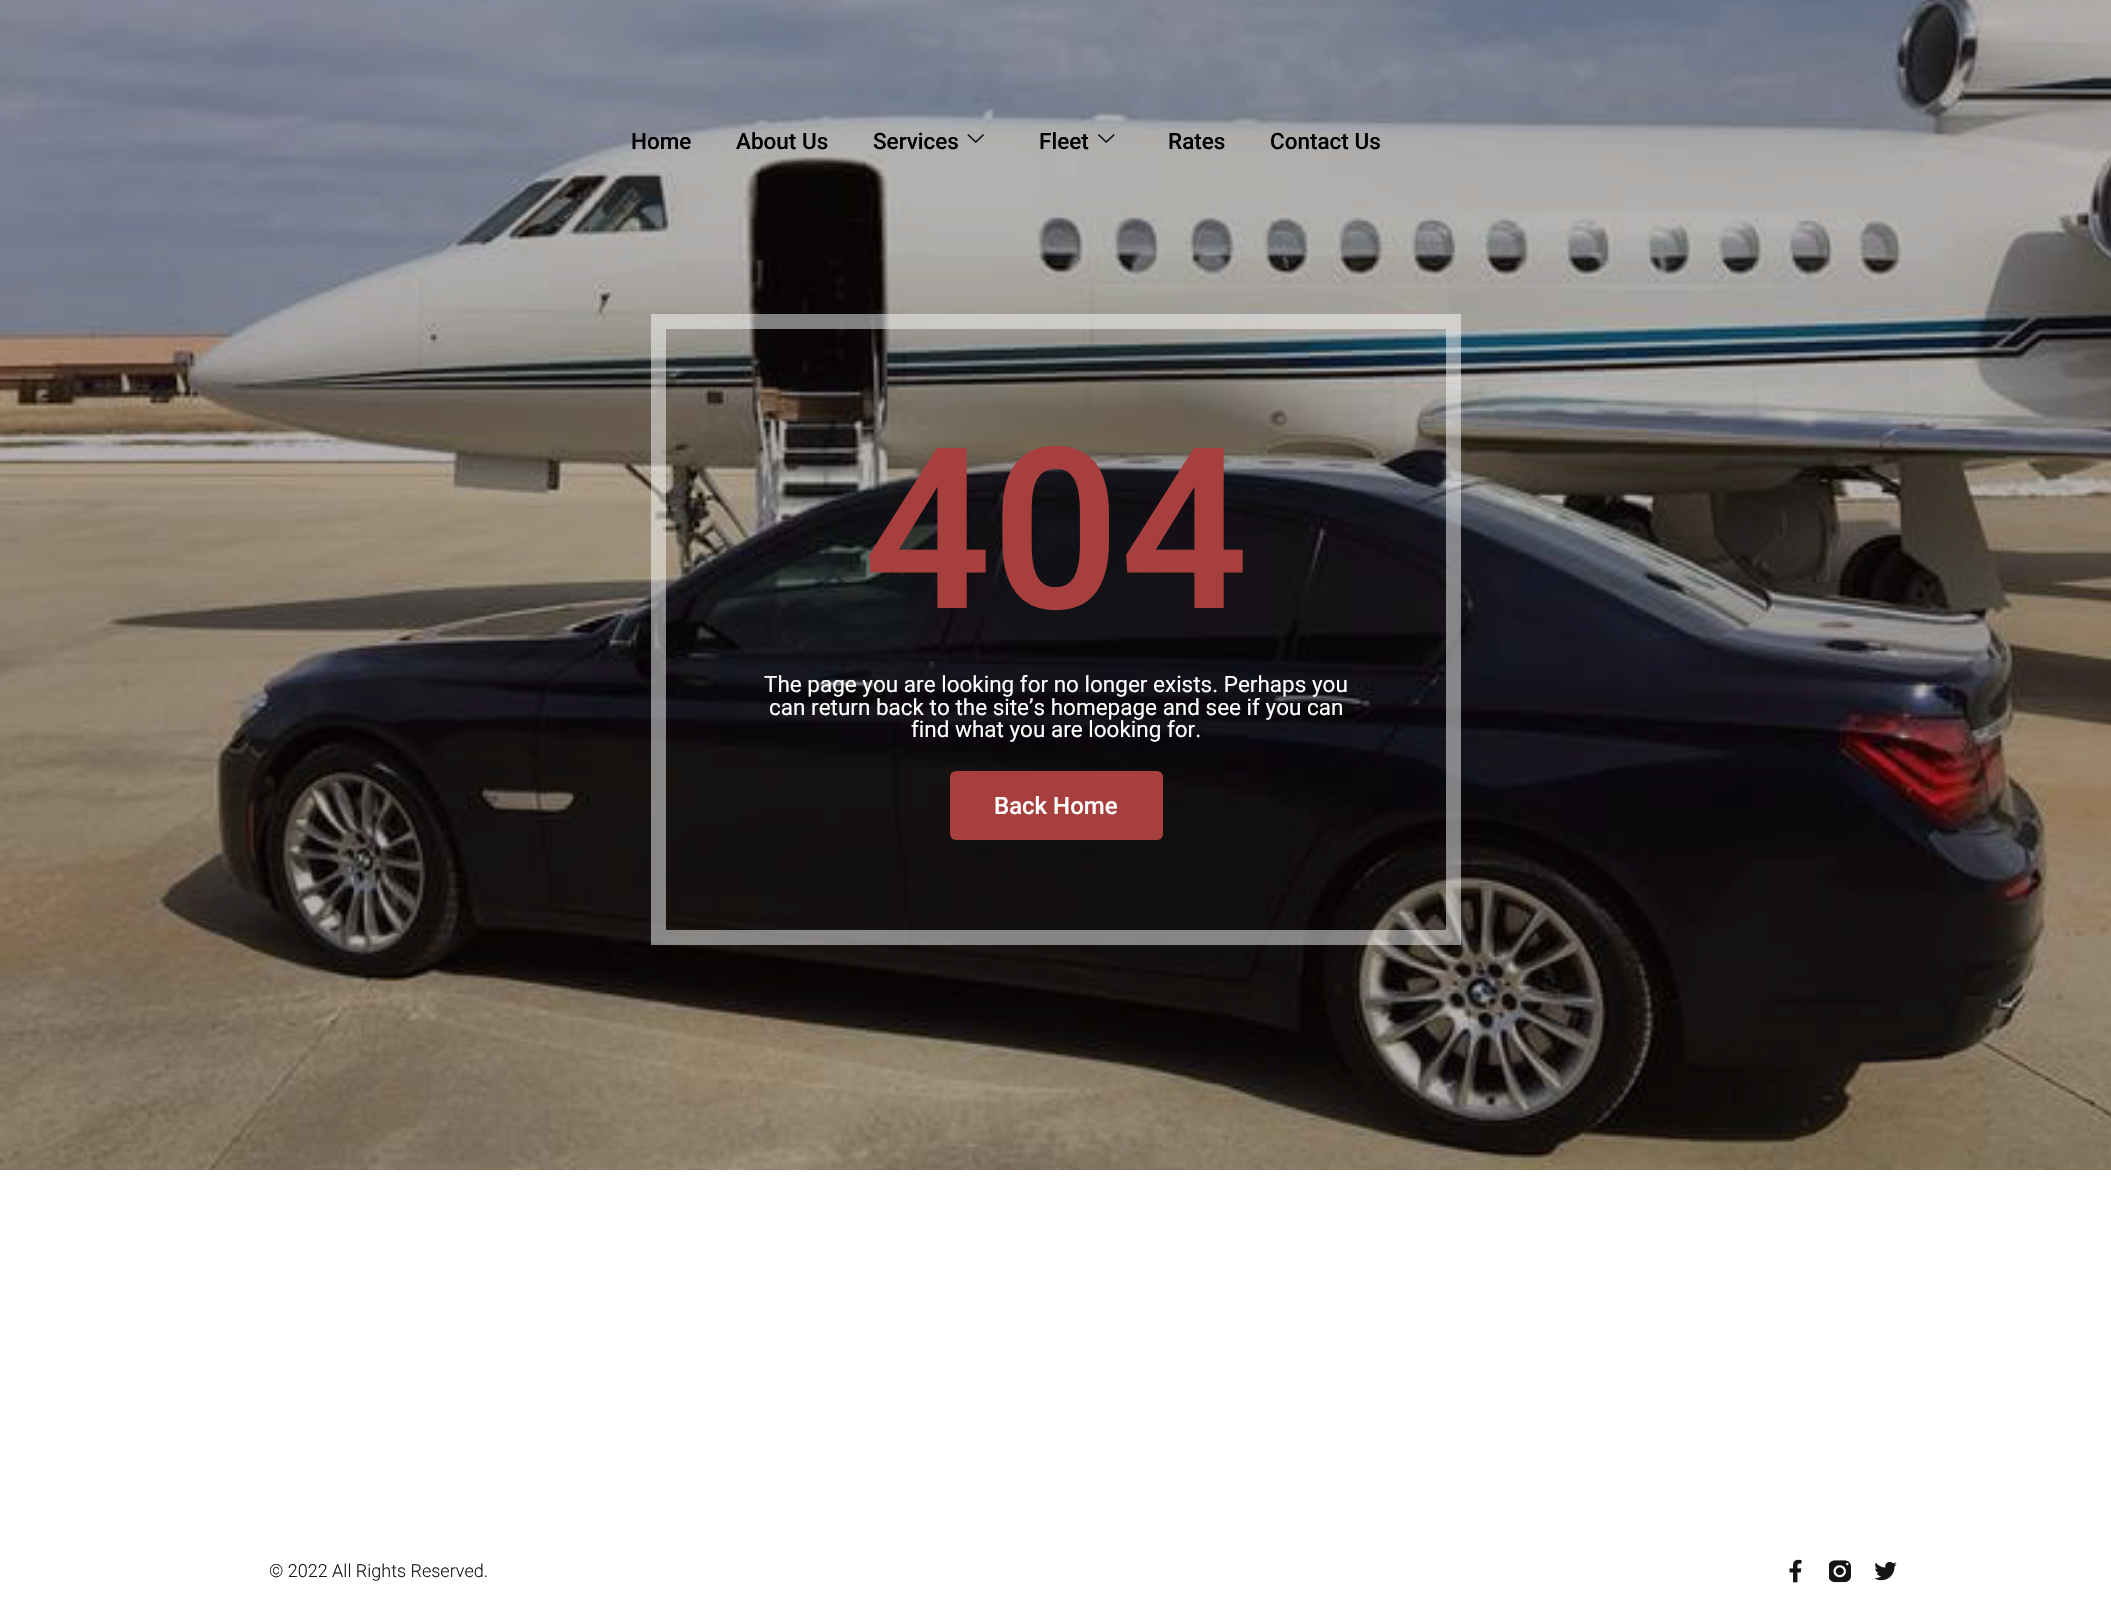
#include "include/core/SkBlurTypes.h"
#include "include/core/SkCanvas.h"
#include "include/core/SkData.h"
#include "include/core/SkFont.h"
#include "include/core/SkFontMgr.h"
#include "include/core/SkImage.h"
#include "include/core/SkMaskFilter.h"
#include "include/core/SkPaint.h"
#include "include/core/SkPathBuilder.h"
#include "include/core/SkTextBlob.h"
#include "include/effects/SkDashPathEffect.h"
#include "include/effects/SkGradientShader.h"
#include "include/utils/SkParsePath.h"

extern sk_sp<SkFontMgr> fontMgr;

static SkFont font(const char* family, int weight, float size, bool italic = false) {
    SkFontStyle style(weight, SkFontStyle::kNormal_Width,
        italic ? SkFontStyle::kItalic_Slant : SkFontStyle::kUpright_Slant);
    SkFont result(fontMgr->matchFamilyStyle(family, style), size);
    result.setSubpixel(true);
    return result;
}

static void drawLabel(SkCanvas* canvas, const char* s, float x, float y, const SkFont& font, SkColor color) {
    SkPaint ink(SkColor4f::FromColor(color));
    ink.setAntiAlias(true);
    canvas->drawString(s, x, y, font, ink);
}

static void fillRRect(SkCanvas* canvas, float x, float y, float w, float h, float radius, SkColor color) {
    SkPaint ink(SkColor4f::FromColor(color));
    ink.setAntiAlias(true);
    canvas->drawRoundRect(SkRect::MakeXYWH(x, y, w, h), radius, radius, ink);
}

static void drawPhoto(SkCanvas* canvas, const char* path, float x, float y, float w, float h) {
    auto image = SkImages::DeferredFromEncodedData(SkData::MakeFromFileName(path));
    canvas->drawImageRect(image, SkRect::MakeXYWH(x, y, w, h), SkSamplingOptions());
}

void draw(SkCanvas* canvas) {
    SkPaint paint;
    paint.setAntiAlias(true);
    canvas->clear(0xFFFFFFFF);
    drawPhoto(canvas, "assets/img3.png", 0, 0, 2111, 1170);
    SkFont font1 = font("Roboto", 500, 22.5f);
    drawLabel(canvas, "Home", 631, 149, font1, 0xFF000000);
    drawLabel(canvas, "About Us", 736, 149, font1, 0xFF000000);
    drawLabel(canvas, "Services", 873, 149, font1, 0xFF000000);
    drawPhoto(canvas, "assets/img1.png", 967, 134, 17, 9);
    drawLabel(canvas, "Fleet", 1039, 149, font1, 0xFF000000);
    drawPhoto(canvas, "assets/img2.png", 1098, 134, 17, 9);
    drawLabel(canvas, "Rates", 1168, 149, font1, 0xFF000000);
    drawLabel(canvas, "Contact Us", 1270, 149, font1, 0xFF000000);
    paint.setStroke(true);
    paint.setStrokeWidth(15);
    paint.setColor(0x7DFFFFFF);
    canvas->drawRect(SkRect::MakeXYWH(658.5f, 321.5f, 795, 616), paint);
    SkFont font2 = font("Roboto", 600, 225);
    drawLabel(canvas, "404", 863, 608, font2, 0xFFA83F3F);
    SkFont font3 = font("Roboto", 400, 22.5f);
    drawLabel(canvas, "The page you are looking for no longer exists. Perhaps you", 764, 692, font3, 0xFFFFFFFF);
    drawLabel(canvas, "can return back to the site’s homepage and see if you can", 769, 715, font3, 0xFFFFFFFF);
    drawLabel(canvas, "find what you are looking for.", 911, 737, font3, 0xFFFFFFFF);
    fillRRect(canvas, 950, 771, 213, 69, 6, 0xFFA83F3F);
    SkFont font4 = font("Roboto", 500, 24);
    drawLabel(canvas, "Back Home", 994, 814, font4, 0xFFFFFFFF);
    SkFont font5 = font("Roboto", 300, 18);
    drawLabel(canvas, "© 2022 All Rights Reserved.", 269, 1577, font5, 0xFF151515);
    drawPhoto(canvas, "assets/img4.png", 1789, 1559, 13, 24);
    drawPhoto(canvas, "assets/img5.png", 1829, 1560, 22, 23);
    drawPhoto(canvas, "assets/img6.png", 1874, 1561, 23, 20);
}
